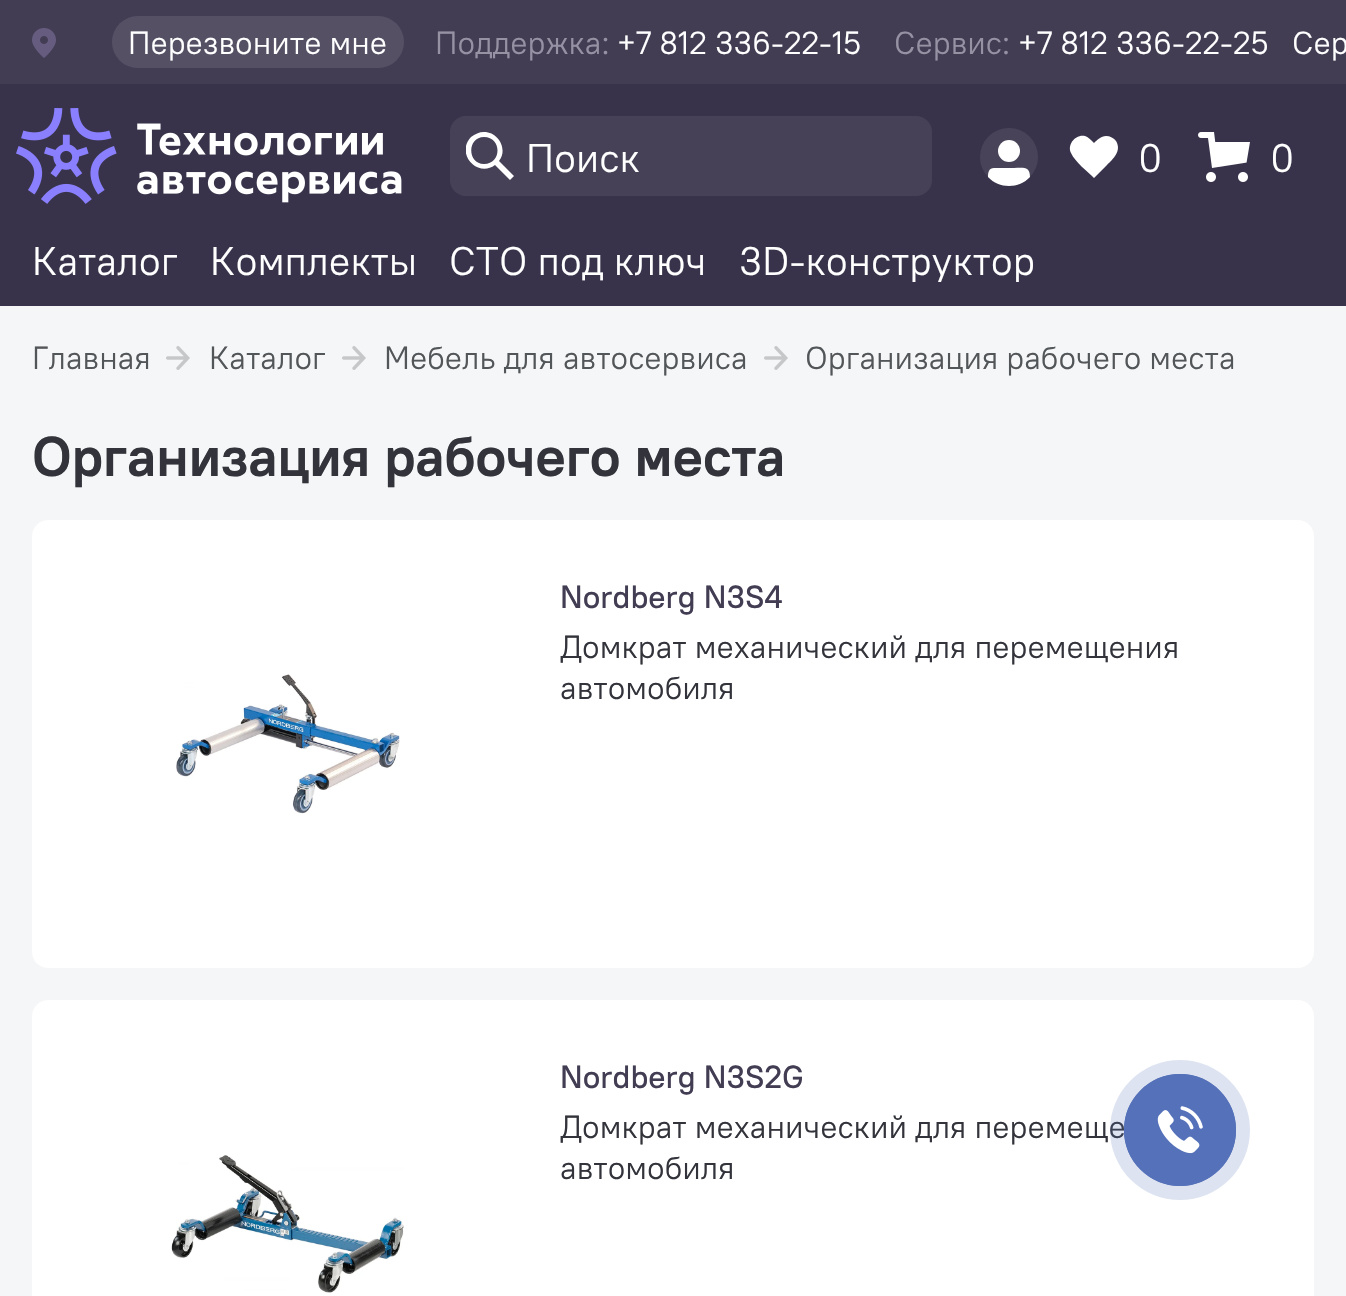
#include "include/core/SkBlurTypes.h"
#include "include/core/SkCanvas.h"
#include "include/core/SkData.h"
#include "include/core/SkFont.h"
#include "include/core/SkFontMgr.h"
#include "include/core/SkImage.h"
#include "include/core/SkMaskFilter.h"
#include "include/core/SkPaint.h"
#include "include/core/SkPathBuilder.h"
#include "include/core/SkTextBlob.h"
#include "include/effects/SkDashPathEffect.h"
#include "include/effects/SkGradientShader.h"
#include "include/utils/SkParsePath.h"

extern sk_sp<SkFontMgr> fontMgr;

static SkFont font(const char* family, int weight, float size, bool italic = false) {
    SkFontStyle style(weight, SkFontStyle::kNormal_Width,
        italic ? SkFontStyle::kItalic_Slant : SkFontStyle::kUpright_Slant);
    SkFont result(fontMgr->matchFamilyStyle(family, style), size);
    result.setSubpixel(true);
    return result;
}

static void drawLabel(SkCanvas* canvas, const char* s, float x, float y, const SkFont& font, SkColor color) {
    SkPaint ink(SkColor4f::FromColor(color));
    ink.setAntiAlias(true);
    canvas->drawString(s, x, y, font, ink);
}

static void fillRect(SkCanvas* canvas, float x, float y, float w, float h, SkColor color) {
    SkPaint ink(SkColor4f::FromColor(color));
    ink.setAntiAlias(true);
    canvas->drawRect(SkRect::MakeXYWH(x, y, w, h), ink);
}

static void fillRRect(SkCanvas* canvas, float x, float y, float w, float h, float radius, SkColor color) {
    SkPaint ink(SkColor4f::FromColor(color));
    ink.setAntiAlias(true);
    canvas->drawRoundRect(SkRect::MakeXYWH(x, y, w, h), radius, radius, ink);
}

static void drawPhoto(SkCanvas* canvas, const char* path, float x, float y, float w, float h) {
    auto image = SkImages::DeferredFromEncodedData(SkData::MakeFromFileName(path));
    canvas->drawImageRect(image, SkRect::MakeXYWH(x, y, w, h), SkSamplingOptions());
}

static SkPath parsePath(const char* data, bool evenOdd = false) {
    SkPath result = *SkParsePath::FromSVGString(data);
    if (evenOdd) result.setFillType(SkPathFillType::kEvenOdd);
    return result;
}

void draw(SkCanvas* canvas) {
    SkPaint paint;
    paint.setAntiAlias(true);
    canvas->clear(0xFF433D54);
    drawPhoto(canvas, "assets/img1.png", 32, 28, 24, 30);
    fillRRect(canvas, 112, 16, 292, 52, 26, 0xFF565065);
    SkFont font1 = font("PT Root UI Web", 400, 32);
    drawLabel(canvas, "Перезвоните мне", 128, 54, font1, 0xFFFFFFFF);
    drawLabel(canvas, "Поддержка:", 435, 54, font1, 0xFF9692A4);
    drawLabel(canvas, "+7 812 336-22-15", 617, 54, font1, 0xFFFFFFFF);
    drawLabel(canvas, "Сервис:", 894, 54, font1, 0xFF9692A4);
    drawLabel(canvas, "+7 812 336-22-25", 1018, 54, font1, 0xFFFFFFFF);
    drawLabel(canvas, "Сер", 1292, 54, font1, 0xFFFFFFFF);
    fillRect(canvas, 0, 84, 1346, 222, 0xFF38334A);
    drawPhoto(canvas, "assets/img2.png", 16, 108, 386, 96);
    fillRRect(canvas, 450, 116, 482, 80, 16, 0xFF464157);
    canvas->save();
    canvas->clipRect(SkRect::MakeXYWH(466, 126, 48, 58));
    paint.setColor(0xFFFFFFFF);
    canvas->drawPath(parsePath("M484 132C499 132 508 150 499 161L514 176L510 180L495 165C478 178 455 154 471 137C475 134 479 132 484 132ZM484 137C467 137 467 164 484 164C502 164 502 137 484 137Z"), paint);
    canvas->restore();
    SkFont font2 = font("PT Root UI Web", 400, 40);
    drawLabel(canvas, "Поиск", 526, 172, font2, 0xFFFFFFFF);
    paint.setColor(0xFF484358);
    canvas->drawCircle(1009, 157, 29, paint);
    paint.setColor(0xFFFFFFFF);
    canvas->drawCircle(1009, 151, 11, paint);
    canvas->drawPath(parsePath("M994 168H1014C1023 168 1030 166 1030 177C1019 189 999 189 988 177C988 172 989 168 994 168Z"), paint);
    canvas->drawPath(parsePath("M1106 136C1110 136 1114 138 1116 141C1122 151 1113 159 1107 165L1094 178C1088 172 1075 162 1071 153C1067 145 1075 134 1085 136C1088 137 1091 140 1094 143C1097 140 1101 136 1106 136Z", true), paint);
    drawLabel(canvas, "0", 1138, 172, font2, 0xFFFFFFFF);
    drawPhoto(canvas, "assets/img3.png", 1198, 132, 52, 50);
    drawLabel(canvas, "0", 1270, 172, font2, 0xFFFFFFFF);
    drawLabel(canvas, "Каталог", 32, 275, font2, 0xFFFFFFFF);
    drawLabel(canvas, "Комплекты", 210, 275, font2, 0xFFFFFFFF);
    drawLabel(canvas, "СТО под ключ", 449, 275, font2, 0xFFFFFFFF);
    canvas->save();
    canvas->clipRect(SkRect::MakeXYWH(0, 236, 1346, 46));
    drawLabel(canvas, "3D-конструктор", 739, 275, font2, 0xFFFFFFFF);
    canvas->restore();
    fillRect(canvas, 0, 306, 1346, 990, 0xFFF5F6F7);
    drawLabel(canvas, "Главная", 32, 369, font1, 0xFF535659);
    drawPhoto(canvas, "assets/img4.png", 166, 346, 24, 24);
    drawLabel(canvas, "Каталог", 209, 369, font1, 0xFF535659);
    drawPhoto(canvas, "assets/img4.png", 342, 346, 24, 24);
    drawLabel(canvas, "Мебель для автосервиса", 384, 369, font1, 0xFF535659);
    drawPhoto(canvas, "assets/img4.png", 764, 346, 24, 24);
    drawLabel(canvas, "Организация рабочего места", 805, 369, font1, 0xFF535659);
    SkFont font3 = font("PT Root UI Web", 700, 56);
    drawLabel(canvas, "Организация рабочего места", 32, 476, font3, 0xFF33343B);
    fillRRect(canvas, 32, 520, 1282, 448, 16, 0xFFFFFFFF);
    SkFont font4 = font("PT Root UI Web", 500, 32);
    drawLabel(canvas, "Nordberg N3S4", 560, 608, font4, 0xFF433D54);
    drawLabel(canvas, "Домкрат механический для перемещения", 560, 658, font1, 0xFF33343B);
    drawLabel(canvas, "автомобиля", 560, 699, font1, 0xFF33343B);
    drawPhoto(canvas, "assets/img5.png", 176, 674, 224, 140);
    fillRRect(canvas, 32, 1000, 1282, 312, 16, 0xFFFFFFFF);
    drawLabel(canvas, "Nordberg N3S2G", 560, 1088, font4, 0xFF433D54);
    drawLabel(canvas, "Домкрат механический для перемеще", 560, 1138, font1, 0xFF33343B);
    drawLabel(canvas, "автомобиля", 560, 1179, font1, 0xFF33343B);
    drawPhoto(canvas, "assets/img6.png", 171, 1155, 233, 138);
    paint.setColor(0x335471B9);
    canvas->drawCircle(1180, 1130, 70, paint);
    paint.setStroke(true);
    paint.setStrokeWidth(2);
    paint.setColor(0xFF5471B9);
    canvas->drawCircle(1180, 1130, 55, paint);
    paint.setStroke(false);
    canvas->drawCircle(1180, 1130, 56, paint);
    drawPhoto(canvas, "assets/img7.png", 1157, 1106, 46, 48);
}
